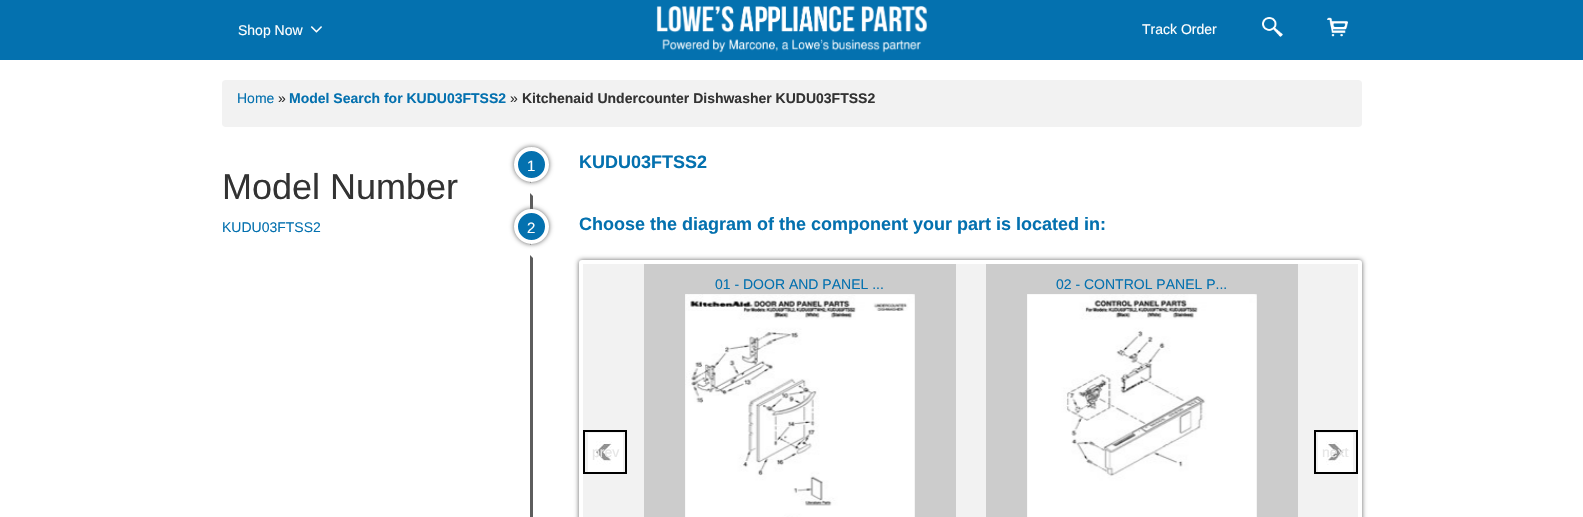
#include "include/core/SkBlurTypes.h"
#include "include/core/SkCanvas.h"
#include "include/core/SkData.h"
#include "include/core/SkFont.h"
#include "include/core/SkFontMgr.h"
#include "include/core/SkImage.h"
#include "include/core/SkMaskFilter.h"
#include "include/core/SkPaint.h"
#include "include/core/SkPathBuilder.h"
#include "include/core/SkTextBlob.h"
#include "include/effects/SkDashPathEffect.h"
#include "include/effects/SkGradientShader.h"
#include "include/utils/SkParsePath.h"

extern sk_sp<SkFontMgr> fontMgr;

static SkFont font(const char* family, int weight, float size, bool italic = false) {
    SkFontStyle style(weight, SkFontStyle::kNormal_Width,
        italic ? SkFontStyle::kItalic_Slant : SkFontStyle::kUpright_Slant);
    SkFont result(fontMgr->matchFamilyStyle(family, style), size);
    result.setSubpixel(true);
    return result;
}

static void drawLabel(SkCanvas* canvas, const char* s, float x, float y, const SkFont& font, SkColor color) {
    SkPaint ink(SkColor4f::FromColor(color));
    ink.setAntiAlias(true);
    canvas->drawString(s, x, y, font, ink);
}

static void fillRect(SkCanvas* canvas, float x, float y, float w, float h, SkColor color) {
    SkPaint ink(SkColor4f::FromColor(color));
    ink.setAntiAlias(true);
    canvas->drawRect(SkRect::MakeXYWH(x, y, w, h), ink);
}

static void fillRRect(SkCanvas* canvas, float x, float y, float w, float h, float radius, SkColor color) {
    SkPaint ink(SkColor4f::FromColor(color));
    ink.setAntiAlias(true);
    canvas->drawRoundRect(SkRect::MakeXYWH(x, y, w, h), radius, radius, ink);
}

static void drawPhoto(SkCanvas* canvas, const char* path, float x, float y, float w, float h) {
    auto image = SkImages::DeferredFromEncodedData(SkData::MakeFromFileName(path));
    canvas->drawImageRect(image, SkRect::MakeXYWH(x, y, w, h), SkSamplingOptions());
}

static SkPath parsePath(const char* data, bool evenOdd = false) {
    SkPath result = *SkParsePath::FromSVGString(data);
    if (evenOdd) result.setFillType(SkPathFillType::kEvenOdd);
    return result;
}

void draw(SkCanvas* canvas) {
    SkPaint paint;
    paint.setAntiAlias(true);
    canvas->clear(0xFFFFFFFF);
    fillRect(canvas, 0, 0, 1583, 60, 0xFF0471AF);
    SkFont font1 = font("Liberation Sans", 400, 14);
    drawLabel(canvas, "Shop Now", 238, 35, font1, 0xFFFFFFFF);
    drawPhoto(canvas, "assets/img1.png", 310, 26, 12, 7);
    drawPhoto(canvas, "assets/img2.png", 656, 6, 271, 47);
    drawLabel(canvas, "Track Order", 1142, 34, font1, 0xFFFFFFFF);
    drawPhoto(canvas, "assets/img3.png", 1262, 17, 21, 20);
    drawPhoto(canvas, "assets/img4.png", 1327, 17, 21, 20);
    fillRRect(canvas, 222, 80, 1140, 47, 4, 0xFFF2F2F2);
    drawLabel(canvas, "Home", 237, 103, font1, 0xFF0471AF);
    drawLabel(canvas, "»", 278, 103, font1, 0xFF333333);
    SkFont font2 = font("Liberation Sans", 700, 14);
    drawLabel(canvas, "Model Search for KUDU03FTSS2", 289, 103, font2, 0xFF0471AF);
    drawLabel(canvas, "»", 510, 103, font1, 0xFF333333);
    drawLabel(canvas, "Kitchenaid Undercounter Dishwasher KUDU03FTSS2", 522, 103, font2, 0xFF333333);
    SkFont font3 = font("Liberation Sans", 400, 36);
    drawLabel(canvas, "Model Number", 222, 199, font3, 0xFF333333);
    drawLabel(canvas, "KUDU03FTSS2", 222, 232, font1, 0xFF0471AF);
    fillRect(canvas, 530, 147, 3, 370, 0xFF5D5D5D);
    paint.setColor(0xFFFFFFFF);
    canvas->drawPath(parsePath("M539 174V202L525 188Z"), paint);
    paint.setColor(0xFF666666);
    paint.setMaskFilter(SkMaskFilter::MakeBlur(kNormal_SkBlurStyle, 2.5f));
    canvas->drawRoundRect(SkRect::MakeXYWH(514, 147, 35, 35), 17.5f, 17.5f, paint);
    paint.setMaskFilter(nullptr);
    paint.setColor(0xFF0471AF);
    canvas->drawCircle(531.5f, 164.5f, 15.5f, paint);
    paint.setStroke(true);
    paint.setStrokeWidth(4);
    paint.setColor(0xFFFFFFFF);
    canvas->drawCircle(531.5f, 164.5f, 15.5f, paint);
    SkFont font4 = font("Liberation Sans", 400, 15);
    drawLabel(canvas, "1", 527, 171, font4, 0xFFFFFFFF);
    SkFont font5 = font("Liberation Sans", 700, 18);
    drawLabel(canvas, "KUDU03FTSS2", 579, 168, font5, 0xFF0471AF);
    paint.setStroke(false);
    canvas->drawPath(parsePath("M539 236V264L525 250Z"), paint);
    paint.setColor(0xFF666666);
    paint.setMaskFilter(SkMaskFilter::MakeBlur(kNormal_SkBlurStyle, 2.5f));
    canvas->drawRoundRect(SkRect::MakeXYWH(514, 209, 35, 35), 17.5f, 17.5f, paint);
    paint.setMaskFilter(nullptr);
    paint.setColor(0xFF0471AF);
    canvas->drawCircle(531.5f, 226.5f, 15.5f, paint);
    paint.setStroke(true);
    paint.setColor(0xFFFFFFFF);
    canvas->drawCircle(531.5f, 226.5f, 15.5f, paint);
    drawLabel(canvas, "2", 527, 233, font4, 0xFFFFFFFF);
    drawLabel(canvas, "Choose the diagram of the component your part is located in:", 579, 230, font5, 0xFF0471AF);
    paint.setStroke(false);
    paint.setColor(0xFF666666);
    paint.setMaskFilter(SkMaskFilter::MakeBlur(kNormal_SkBlurStyle, 2.5f));
    canvas->drawRoundRect(SkRect::MakeXYWH(579, 260, 783, 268), 3, 3, paint);
    paint.setMaskFilter(nullptr);
    paint.setColor(0xFFF2F2F2);
    canvas->drawRoundRect(SkRect::MakeXYWH(581, 262, 779, 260), 1, 1, paint);
    paint.setStroke(true);
    paint.setColor(0xFFFFFFFF);
    canvas->drawRoundRect(SkRect::MakeXYWH(581, 262, 779, 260), 1, 1, paint);
    fillRect(canvas, 644, 264, 312, 253, 0xFFCCCCCC);
    drawLabel(canvas, "01 - DOOR AND PANEL ...", 715, 289, font1, 0xFF0471AF);
    drawPhoto(canvas, "assets/img5.png", 685, 294, 230, 223);
    fillRect(canvas, 986, 264, 312, 253, 0xFFCCCCCC);
    drawLabel(canvas, "02 - CONTROL PANEL P...", 1056, 289, font1, 0xFF0471AF);
    drawPhoto(canvas, "assets/img6.png", 1027, 294, 230, 223);
    drawPhoto(canvas, "assets/img7.png", 588, 433, 35, 39);
    paint.setStrokeWidth(2);
    paint.setColor(0xFF000000);
    canvas->drawRect(SkRect::MakeXYWH(584, 431, 42, 42), paint);
    drawLabel(canvas, "prev", 592, 457, font1, 0xFFE6E6E6);
    drawPhoto(canvas, "assets/img8.png", 1318, 433, 35, 39);
    canvas->drawRect(SkRect::MakeXYWH(1315, 431, 42, 42), paint);
    drawLabel(canvas, "next", 1322, 457, font1, 0xFFE6E6E6);
}
